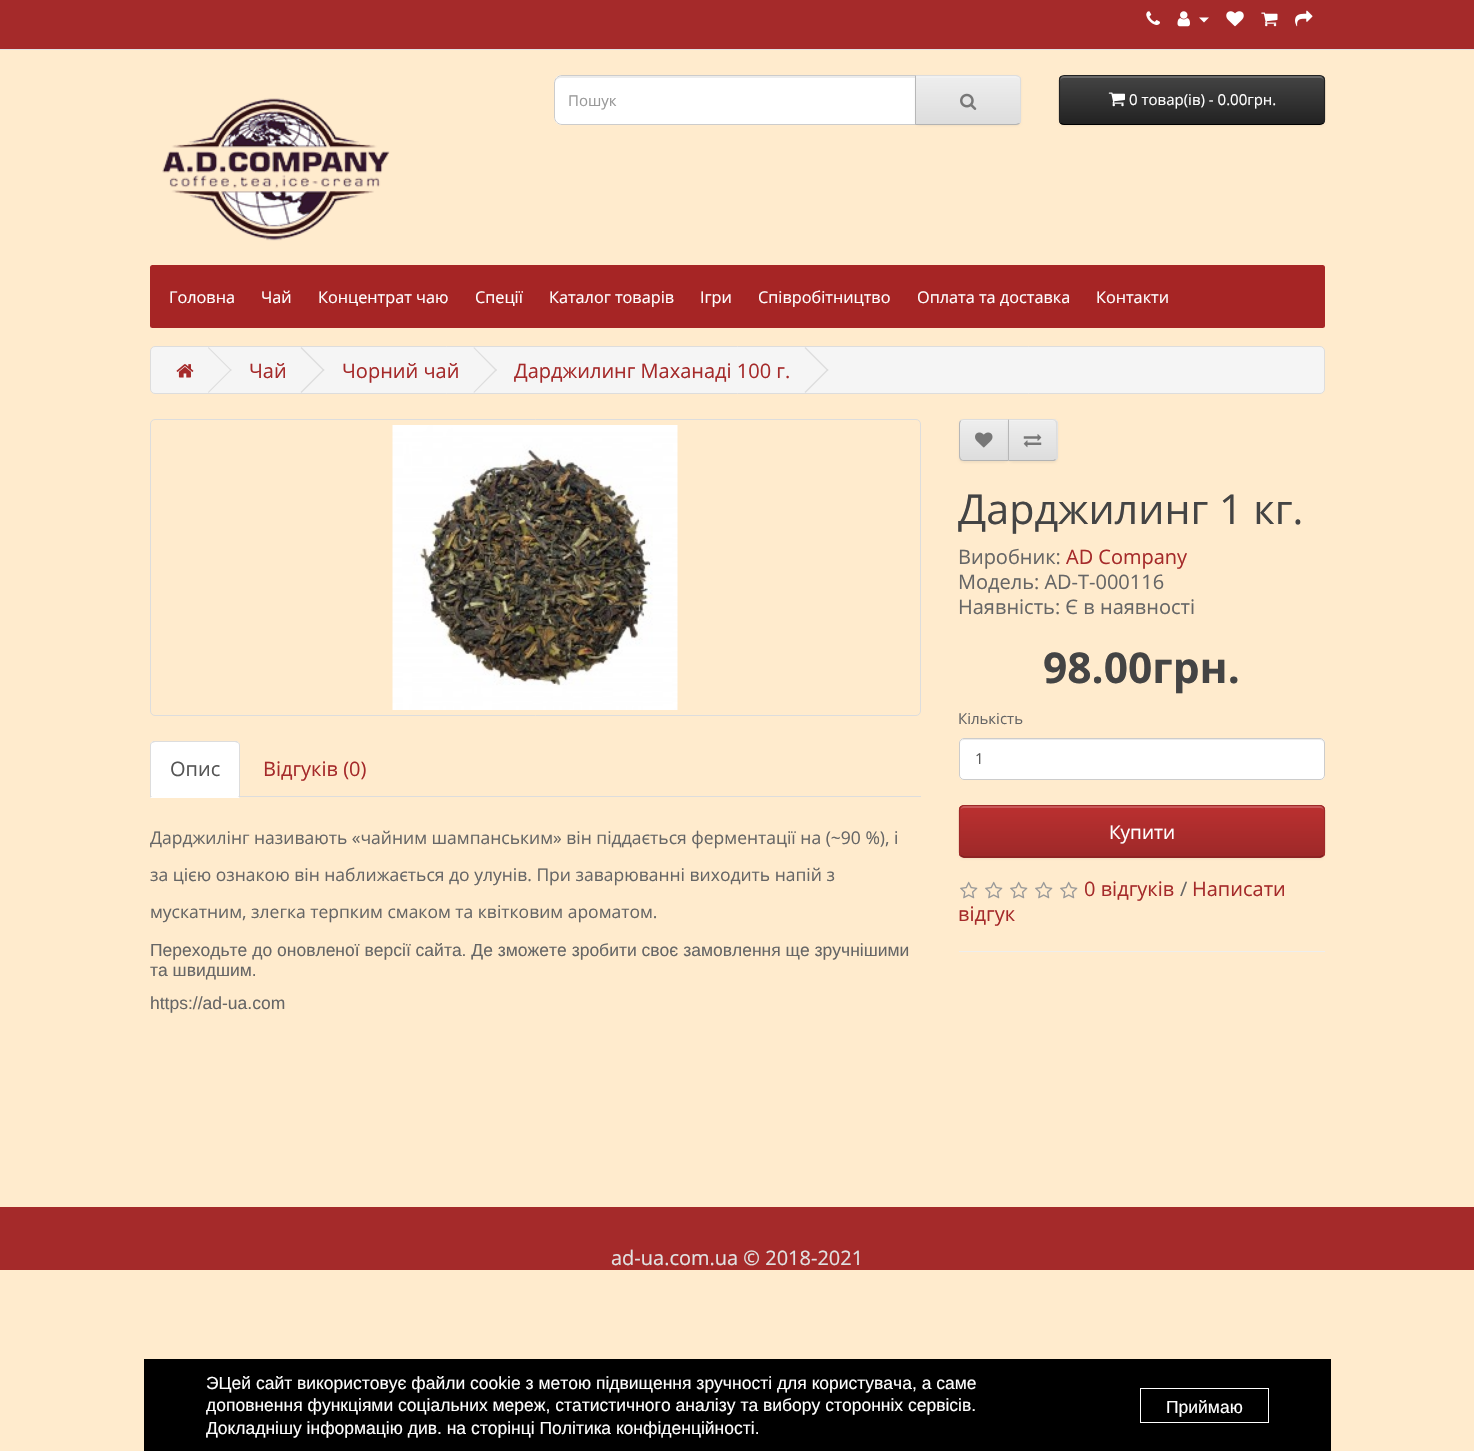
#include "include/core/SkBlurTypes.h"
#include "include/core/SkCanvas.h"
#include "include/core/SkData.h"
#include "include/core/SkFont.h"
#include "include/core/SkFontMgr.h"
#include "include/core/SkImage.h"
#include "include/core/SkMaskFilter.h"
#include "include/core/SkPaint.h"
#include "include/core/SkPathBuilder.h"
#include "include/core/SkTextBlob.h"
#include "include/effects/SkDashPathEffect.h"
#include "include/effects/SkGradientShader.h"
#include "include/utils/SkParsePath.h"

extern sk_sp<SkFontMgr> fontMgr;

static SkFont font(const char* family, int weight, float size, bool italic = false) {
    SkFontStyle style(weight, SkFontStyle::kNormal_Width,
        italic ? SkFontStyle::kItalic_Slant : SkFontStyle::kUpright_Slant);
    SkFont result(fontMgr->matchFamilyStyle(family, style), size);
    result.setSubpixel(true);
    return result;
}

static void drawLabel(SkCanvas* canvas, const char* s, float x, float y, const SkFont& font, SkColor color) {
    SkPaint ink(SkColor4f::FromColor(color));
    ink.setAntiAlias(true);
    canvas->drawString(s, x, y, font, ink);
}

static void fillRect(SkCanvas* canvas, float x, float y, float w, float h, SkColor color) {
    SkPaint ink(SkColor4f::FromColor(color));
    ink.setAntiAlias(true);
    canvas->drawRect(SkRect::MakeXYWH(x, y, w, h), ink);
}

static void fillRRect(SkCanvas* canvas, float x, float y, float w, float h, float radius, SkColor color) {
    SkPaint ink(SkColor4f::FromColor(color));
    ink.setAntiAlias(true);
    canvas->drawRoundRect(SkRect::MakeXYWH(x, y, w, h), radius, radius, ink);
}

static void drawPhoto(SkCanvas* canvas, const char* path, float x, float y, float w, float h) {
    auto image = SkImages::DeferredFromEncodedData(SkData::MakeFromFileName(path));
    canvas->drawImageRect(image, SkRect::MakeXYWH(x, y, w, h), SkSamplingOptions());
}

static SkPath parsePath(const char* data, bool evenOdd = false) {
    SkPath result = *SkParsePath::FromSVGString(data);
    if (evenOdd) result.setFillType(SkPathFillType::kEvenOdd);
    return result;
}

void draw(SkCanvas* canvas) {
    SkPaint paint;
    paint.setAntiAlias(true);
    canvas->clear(0xFFFFEBCD);
    fillRect(canvas, 0, 0, 1474, 49, 0xFFA52A2A);
    fillRect(canvas, 0, 49, 1474, 1, 0xFFE2E2E2);
    drawPhoto(canvas, "assets/img1.png", 1146, 11, 14, 14);
    drawPhoto(canvas, "assets/img2.png", 1177, 11, 13, 16);
    paint.setColor(0xFFFFFFFF);
    canvas->drawPath(parsePath("M1199 17.5H1209L1204 22.5Z"), paint);
    drawPhoto(canvas, "assets/img3.png", 1226, 11, 18, 16);
    drawPhoto(canvas, "assets/img4.png", 1261, 12, 17, 15);
    drawPhoto(canvas, "assets/img5.png", 1295, 10, 18, 17);
    drawPhoto(canvas, "assets/img6.png", 162, 98, 228, 143);
    canvas->drawPath(parsePath("M562 75H916V125H562C557.5 125 554 121.5 554 117V83C554 78.5 557.5 75 562 75Z"), paint);
    paint.setColor(0xFFECECEC);
    canvas->drawPath(parsePath("M561 78H915V76H561C558 76 555 79 555 82V84C555 80 558 78 561 78Z"), paint);
    paint.setStroke(true);
    paint.setStrokeWidth(1);
    paint.setColor(0xFFCCCCCC);
    canvas->drawPath(parsePath("M562 75.5H915.5V124.5H562C558 124.5 554.5 121 554.5 117V83C554.5 79 558 75.5 562 75.5Z"), paint);
    SkFont font1 = font("Open Sans", 400, 15);
    drawLabel(canvas, "Пошук", 568, 106, font1, 0xFF999999);
    paint.setStroke(false);
    paint.setColor(0x0D000000);
    paint.setMaskFilter(SkMaskFilter::MakeBlur(kNormal_SkBlurStyle, 1));
    canvas->drawRoundRect(SkRect::MakeXYWH(915, 76, 106, 50), 5, 5, paint);
    paint.setMaskFilter(nullptr);
    canvas->save();
    canvas->clipPath(parsePath("M915 75H1016C1019 75 1021 77 1021 80V120C1021 123 1019 125 1016 125H915Z"), true);
    {
        const SkColor colors[] = {0xFFEEEEEE, 0xFFDDDDDD};
        const float stops[] = {0, 1};
        const SkPoint ends[] = {{968, 76}, {968, 124}};
        paint.setShader(SkGradientShader::MakeLinear(ends, colors, stops, 2, SkTileMode::kClamp));
        paint.setAlpha(255);
    }
    canvas->drawRect(SkRect::MakeXYWH(916, 76, 105, 48), paint);
    canvas->restore();
    paint.setShader(nullptr);
    paint.setColor(0xFFF1F1F1);
    canvas->drawPath(parsePath("M916 78H1016C1018 78 1020 79 1020 81V80C1020 78 1018 76 1016 76H916Z"), paint);
    paint.setColor(0xFFDDDDDD);
    canvas->drawPath(parsePath("M915 75L916 76H1016L1019 77H1020C1019 76 1018 75 1016 75Z"), paint);
    canvas->drawPath(parsePath("M1020 77C1021 77 1021 79 1021 80V120C1021 121 1021 123 1020 123H1019C1020 122 1020 121 1020 120V80C1020 79 1020 78 1019 77Z"), paint);
    paint.setColor(0xFFB3B3B3);
    canvas->drawPath(parsePath("M1016 125C1018 125 1019 124 1020 123H1019L1016 124H916L915 125Z"), paint);
    paint.setColor(0xFFB7B7B7);
    canvas->drawPath(parsePath("M915 75V125L916 124V76Z"), paint);
    drawPhoto(canvas, "assets/img7.png", 960, 93, 17, 17);
    paint.setColor(0x0D000000);
    paint.setMaskFilter(SkMaskFilter::MakeBlur(kNormal_SkBlurStyle, 1));
    canvas->drawRoundRect(SkRect::MakeXYWH(1059, 76, 266, 50), 5, 5, paint);
    paint.setMaskFilter(nullptr);
    canvas->save();
    canvas->clipPath(parsePath("M1064 75H1320C1323 75 1325 77 1325 80V120C1325 123 1323 125 1320 125H1064C1061 125 1059 123 1059 120V80C1059 77 1061 75 1064 75Z"), true);
    {
        const SkColor colors[] = {0xFF444444, 0xFF222222};
        const float stops[] = {0, 1};
        const SkPoint ends[] = {{1192, 76}, {1192, 124}};
        paint.setShader(SkGradientShader::MakeLinear(ends, colors, stops, 2, SkTileMode::kClamp));
        paint.setAlpha(255);
    }
    canvas->drawRect(SkRect::MakeXYWH(1059, 76, 266, 48), paint);
    canvas->restore();
    paint.setShader(nullptr);
    paint.setColor(0xFF696969);
    canvas->drawPath(parsePath("M1064 78H1320C1322 78 1324 79 1324 81V80C1324 78 1322 76 1320 76H1064C1062 76 1060 78 1060 80V81C1060 79 1062 78 1064 78Z"), paint);
    paint.setStroke(true);
    paint.setStrokeWidth(1.2f);
    paint.setColor(0xFF000000);
    canvas->drawPath(parsePath("M1323 123C1322.5 124 1321 124.5 1320 124.5H1064C1062.5 124.5 1061.5 124 1060.5 123"), paint);
    paint.setColor(0xFF222222);
    canvas->drawPath(parsePath("M1060.5 123C1060 122.5 1059.5 121 1059.5 120V80C1059.5 79 1060 77.5 1060.5 77C1061.5 76 1062.5 75.5 1064 75.5H1320C1321 75.5 1322.5 76 1323 77C1324 77.5 1324.5 79 1324.5 80V120C1324.5 121 1324 122.5 1323 123"), paint);
    drawPhoto(canvas, "assets/img8.png", 1108, 92, 17, 15);
    drawLabel(canvas, "0 товар(ів) - 0.00грн.", 1129, 105, font1, 0xFFFFFFFF);
    fillRRect(canvas, 150, 265, 1175, 63, 2.5f, 0xFFA62525);
    SkFont font2 = font("Open Sans", 400, 16.25f);
    drawLabel(canvas, "Головна", 169, 303, font2, 0xFFFFFFFF);
    drawLabel(canvas, "Чай", 261, 303, font2, 0xFFFFFFFF);
    drawLabel(canvas, "Концентрат чаю", 318, 303, font2, 0xFFFFFFFF);
    drawLabel(canvas, "Спеції", 475, 303, font2, 0xFFFFFFFF);
    drawLabel(canvas, "Каталог товарів", 549, 303, font2, 0xFFFFFFFF);
    drawLabel(canvas, "Ігри", 700, 303, font2, 0xFFFFFFFF);
    drawLabel(canvas, "Співробітництво", 758, 303, font2, 0xFFFFFFFF);
    drawLabel(canvas, "Оплата та доставка", 917, 303, font2, 0xFFFFFFFF);
    drawLabel(canvas, "Контакти", 1096, 303, font2, 0xFFFFFFFF);
    paint.setStroke(false);
    paint.setColor(0xFFF5F5F5);
    canvas->drawRoundRect(SkRect::MakeXYWH(150.5f, 346.5f, 1174, 47), 4.5f, 4.5f, paint);
    paint.setStroke(true);
    paint.setStrokeWidth(1);
    paint.setColor(0xFFDDDDDD);
    canvas->drawRoundRect(SkRect::MakeXYWH(150.5f, 346.5f, 1174, 47), 4.5f, 4.5f, paint);
    drawPhoto(canvas, "assets/img9.png", 176, 364, 18, 14);
    paint.setStroke(false);
    canvas->drawPath(parsePath("M208 348L208.5 347L231.5 370L231 371Z"), paint);
    canvas->drawPath(parsePath("M208 392L231 369L231.5 370L208.5 393Z"), paint);
    SkFont font3 = font("Open Sans", 400, 20);
    drawLabel(canvas, "Чай", 249, 378, font3, 0xFFA52A2A);
    canvas->drawPath(parsePath("M300.5 348L301.5 347L324.5 370L323.5 371Z"), paint);
    canvas->drawPath(parsePath("M300.5 392L323.5 369L324.5 370L301.5 393Z"), paint);
    drawLabel(canvas, "Чорний чай", 342, 378, font3, 0xFFA52A2A);
    canvas->drawPath(parsePath("M473.5 348L474 347L497 370L496 371Z"), paint);
    canvas->drawPath(parsePath("M473.5 392L496 369L497 370L474 393Z"), paint);
    drawLabel(canvas, "Дарджилинг Маханаді 100 г.", 514, 378, font3, 0xFFA52A2A);
    canvas->drawPath(parsePath("M804.5 348L805.5 347L828.5 370L827.5 371Z"), paint);
    canvas->drawPath(parsePath("M804.5 392L827.5 369L828.5 370L805.5 393Z"), paint);
    paint.setStroke(true);
    canvas->drawRoundRect(SkRect::MakeXYWH(150.5f, 419.5f, 770, 296), 4.5f, 4.5f, paint);
    drawPhoto(canvas, "assets/img10.png", 392, 425, 286, 285);
    fillRect(canvas, 240, 796, 681, 1, 0xFFDDDDDD);
    paint.setStroke(false);
    paint.setColor(0xFFFFFFFF);
    canvas->drawPath(parsePath("M155 741H235C238 741 240 743 240 746V798H150V746C150 743 152 741 155 741Z"), paint);
    paint.setColor(0xFFDDDDDD);
    canvas->drawPath(parsePath("M155 742L152 743H151L153 741H237L239 743H238L235 742Z"), paint);
    canvas->drawPath(parsePath("M240 798V746C240 745 240 743 239 743H238C239 744 239 745 239 746V796H238Z"), paint);
    canvas->drawPath(parsePath("M150 798L152 796H151V746C151 745 151 744 152 743H151C150 743 150 745 150 746Z"), paint);
    drawLabel(canvas, "Опис", 170, 776, font3, 0xFF555555);
    drawLabel(canvas, "Відгуків (0)", 263, 776, font3, 0xFFA52A2A);
    SkFont font4 = font("Open Sans", 400, 17.5f);
    drawLabel(canvas, "Дарджилінг називають «чайним шампанським» він піддається ферментації на (~90 %), і", 150, 844, font4, 0xFF666666);
    drawLabel(canvas, "за цією ознакою він наближається до улунів. При заварюванні виходить напій з", 150, 881, font4, 0xFF666666);
    drawLabel(canvas, "мускатним, злегка терпким смаком та квітковим ароматом.", 150, 918, font4, 0xFF666666);
    SkFont font5 = font("Liberation Sans", 400, 17.5f);
    drawLabel(canvas, "Переходьте до оновленої версії сайта. Де зможете зробити своє замовлення ще зручнішими", 150, 956, font5, 0xFF666666);
    drawLabel(canvas, "та швидшим.", 150, 976, font5, 0xFF666666);
    drawLabel(canvas, "https://ad-ua.com", 150, 1009, font5, 0xFF666666);
    paint.setColor(0x0D000000);
    paint.setMaskFilter(SkMaskFilter::MakeBlur(kNormal_SkBlurStyle, 1));
    canvas->drawRoundRect(SkRect::MakeXYWH(959, 420, 50, 43), 5, 5, paint);
    paint.setMaskFilter(nullptr);
    canvas->save();
    canvas->clipPath(parsePath("M964 419H1009V461H964C961 461 959 459 959 456V424C959 421 961 419 964 419Z"), true);
    {
        const SkColor colors[] = {0xFFEEEEEE, 0xFFDDDDDD};
        const float stops[] = {0, 1};
        const SkPoint ends[] = {{984, 420}, {984, 460}};
        paint.setShader(SkGradientShader::MakeLinear(ends, colors, stops, 2, SkTileMode::kClamp));
        paint.setAlpha(255);
    }
    canvas->drawRect(SkRect::MakeXYWH(959, 420, 49, 40), paint);
    canvas->restore();
    paint.setShader(nullptr);
    paint.setColor(0xFFF1F1F1);
    canvas->drawPath(parsePath("M964 421H1008V420H964C962 420 960 422 960 424V425C960 423 962 421 964 421Z"), paint);
    paint.setColor(0xFFDDDDDD);
    canvas->drawPath(parsePath("M964 419C962 419 961 420 960 420L961 421C962 420 963 420 964 420H1008V419Z"), paint);
    paint.setColor(0xFFB3B3B3);
    canvas->drawPath(parsePath("M1008 461H964C962 461 961 460 960 460L961 459C962 460 963 460 964 460H1008Z"), paint);
    paint.setColor(0xFFB7B7B7);
    canvas->drawPath(parsePath("M960.5 420.5C959.5 421 959 422.5 959 424V456C959 457.5 959.5 459 960.5 459.5L961 459C960.5 458 960 457 960 456V424C960 423 960.5 422 961 421Z"), paint);
    drawPhoto(canvas, "assets/img11.png", 975, 432, 18, 16);
    paint.setColor(0x0D000000);
    paint.setMaskFilter(SkMaskFilter::MakeBlur(kNormal_SkBlurStyle, 1));
    canvas->drawRoundRect(SkRect::MakeXYWH(1008, 420, 50, 43), 5, 5, paint);
    paint.setMaskFilter(nullptr);
    paint.setColor(0xFFE7E7E7);
    canvas->drawPath(parsePath("M1008 419H1053C1056 419 1058 421 1058 424V456C1058 459 1056 461 1053 461H1008Z"), paint);
    canvas->save();
    canvas->clipPath(parsePath("M1008 419H1053C1056 419 1058 421 1058 424V456C1058 459 1056 461 1053 461H1008Z"), true);
    {
        const SkColor colors[] = {0xFFEEEEEE, 0xFFDDDDDD};
        const float stops[] = {0, 1};
        const SkPoint ends[] = {{1033, 420}, {1033, 460}};
        paint.setShader(SkGradientShader::MakeLinear(ends, colors, stops, 2, SkTileMode::kClamp));
        paint.setAlpha(255);
    }
    canvas->drawRect(SkRect::MakeXYWH(1009, 420, 49, 40), paint);
    canvas->restore();
    paint.setShader(nullptr);
    paint.setColor(0xFFF1F1F1);
    canvas->drawPath(parsePath("M1009 421H1052C1055 421 1056 423 1056 425V424C1056 422 1054 420 1052 420H1009Z"), paint);
    paint.setColor(0xFFDDDDDD);
    canvas->drawPath(parsePath("M1008 419L1009 420H1052C1053 420 1054 420 1055 421L1056 420L1052 419Z"), paint);
    canvas->drawPath(parsePath("M1056 420.5L1057.5 422V458L1056 459.5L1055 459C1055.5 458 1056 457 1056 456V424C1056 423 1055.5 422 1055 421Z"), paint);
    paint.setColor(0xFFB3B3B3);
    canvas->drawPath(parsePath("M1056 460C1055 461 1053 461 1052 461H1008L1009 460H1052C1053 460 1054 460 1055 459Z"), paint);
    paint.setColor(0xFFB7B7B7);
    canvas->drawPath(parsePath("M1008 419V461L1009 460V420Z"), paint);
    drawPhoto(canvas, "assets/img12.png", 1023, 434, 19, 14);
    SkFont font6 = font("Open Sans", 400, 41.25f);
    drawLabel(canvas, "Дарджилинг 1 кг.", 958, 524, font6, 0xFF444444);
    drawLabel(canvas, "Виробник:", 958, 564, font3, 0xFF666666);
    drawLabel(canvas, "AD Company", 1066, 564, font3, 0xFFA52A2A);
    drawLabel(canvas, "Модель: AD-T-000116", 958, 589, font3, 0xFF666666);
    drawLabel(canvas, "Наявність: Є в наявності", 958, 614, font3, 0xFF666666);
    SkFont font7 = font("Open Sans", 700, 42.5f);
    drawLabel(canvas, "98.00грн.", 1043, 683, font7, 0xFF444444);
    drawLabel(canvas, "Кількість", 958, 724, font1, 0xFF666666);
    fillRRect(canvas, 959, 738, 366, 42, 5, 0xFFFFFFFF);
    paint.setColor(0xFFECECEC);
    canvas->drawPath(parsePath("M964 740H1320C1322 740 1324 742 1324 744C1324 741 1323 739 1320 739H963L961 741L960 744C960 742 962 740 964 740Z"), paint);
    paint.setStroke(true);
    paint.setColor(0xFFCCCCCC);
    canvas->drawRoundRect(SkRect::MakeXYWH(959.5f, 738.5f, 365, 41), 4.5f, 4.5f, paint);
    drawLabel(canvas, "1", 975, 764, font1, 0xFF555555);
    paint.setStroke(false);
    paint.setColor(0x0D000000);
    paint.setMaskFilter(SkMaskFilter::MakeBlur(kNormal_SkBlurStyle, 1));
    canvas->drawRoundRect(SkRect::MakeXYWH(959, 806, 366, 53), 5, 5, paint);
    paint.setMaskFilter(nullptr);
    fillRRect(canvas, 959, 805, 366, 53, 5, 0xFFA52A2A);
    canvas->save();
    canvas->clipPath(parsePath("M964 805H1320C1323 805 1325 807 1325 810V853C1325 856 1323 858 1320 858H964C961 858 959 856 959 853V810C959 807 961 805 964 805Z"), true);
    {
        const SkColor colors[] = {0xFFBB3030, 0xFF9E2929};
        const float stops[] = {0, 1};
        const SkPoint ends[] = {{1142, 806}, {1142, 856}};
        paint.setShader(SkGradientShader::MakeLinear(ends, colors, stops, 2, SkTileMode::kClamp));
        paint.setAlpha(255);
    }
    canvas->drawRect(SkRect::MakeXYWH(959, 806, 366, 50), paint);
    canvas->restore();
    paint.setShader(nullptr);
    paint.setColor(0xFFC85959);
    canvas->drawPath(parsePath("M964 808H1320C1322 808 1324 809 1324 811C1324 808 1323 806 1320 806H963L961 808L960 811C960 809 962 808 964 808Z"), paint);
    paint.setStroke(true);
    paint.setStrokeWidth(1.2f);
    paint.setColor(0xFF751E1E);
    canvas->drawPath(parsePath("M1323 855.5L1320 857H964L960.5 855.5"), paint);
    paint.setColor(0xFF9E2929);
    canvas->drawPath(parsePath("M960.5 855.5C960 855 959.5 853.5 959.5 852.5V810C959.5 809 960 807.5 960.5 807C961.5 806 962.5 805.5 964 805.5H1320C1321 805.5 1322.5 806 1323 807C1324 807.5 1324.5 809 1324.5 810V852.5C1324.5 853.5 1324 855 1323 855.5"), paint);
    SkFont font8 = font("Open Sans", 400, 19);
    drawLabel(canvas, "Купити", 1109, 839, font8, 0xFFFFFFFF);
    drawPhoto(canvas, "assets/img13.png", 960, 881, 18, 18);
    drawPhoto(canvas, "assets/img13.png", 985, 881, 18, 18);
    drawPhoto(canvas, "assets/img13.png", 1010, 881, 18, 18);
    drawPhoto(canvas, "assets/img13.png", 1035, 881, 18, 18);
    drawPhoto(canvas, "assets/img13.png", 1060, 881, 18, 18);
    drawLabel(canvas, "0 відгуків", 1084, 896, font3, 0xFFA52A2A);
    drawLabel(canvas, "/", 1180, 896, font3, 0xFF666666);
    drawLabel(canvas, "Написати", 1192, 896, font3, 0xFFA52A2A);
    drawLabel(canvas, "відгук", 958, 921, font3, 0xFFA52A2A);
    fillRect(canvas, 959, 951, 366, 1, 0xFFEEEEEE);
    fillRect(canvas, 0, 1207, 1474, 63, 0xFFA52A2A);
    drawLabel(canvas, "ad-ua.com.ua © 2018-2021", 611, 1265, font3, 0xFFE2E2E2);
    fillRect(canvas, 144, 1359, 1187, 92, 0xFF000000);
    drawLabel(canvas, "ЭЦей сайт використовує файли cookie з метою підвищення зручності для користувача, а саме", 206, 1389, font5, 0xFFFFFFFF);
    drawLabel(canvas, "доповнення функціями соціальних мереж, статистичного аналізу та вибору сторонніх сервісів.", 206, 1411, font5, 0xFFFFFFFF);
    drawLabel(canvas, "Докладнішу інформацію див. на сторінці Політика конфіденційності.", 206, 1434, font5, 0xFFFFFFFF);
    paint.setStrokeWidth(1);
    paint.setColor(0xFFFFFFFF);
    canvas->drawRect(SkRect::MakeXYWH(1140.5f, 1388.5f, 128, 34), paint);
    drawLabel(canvas, "Приймаю", 1166, 1413, font5, 0xFFFFFFFF);
}
